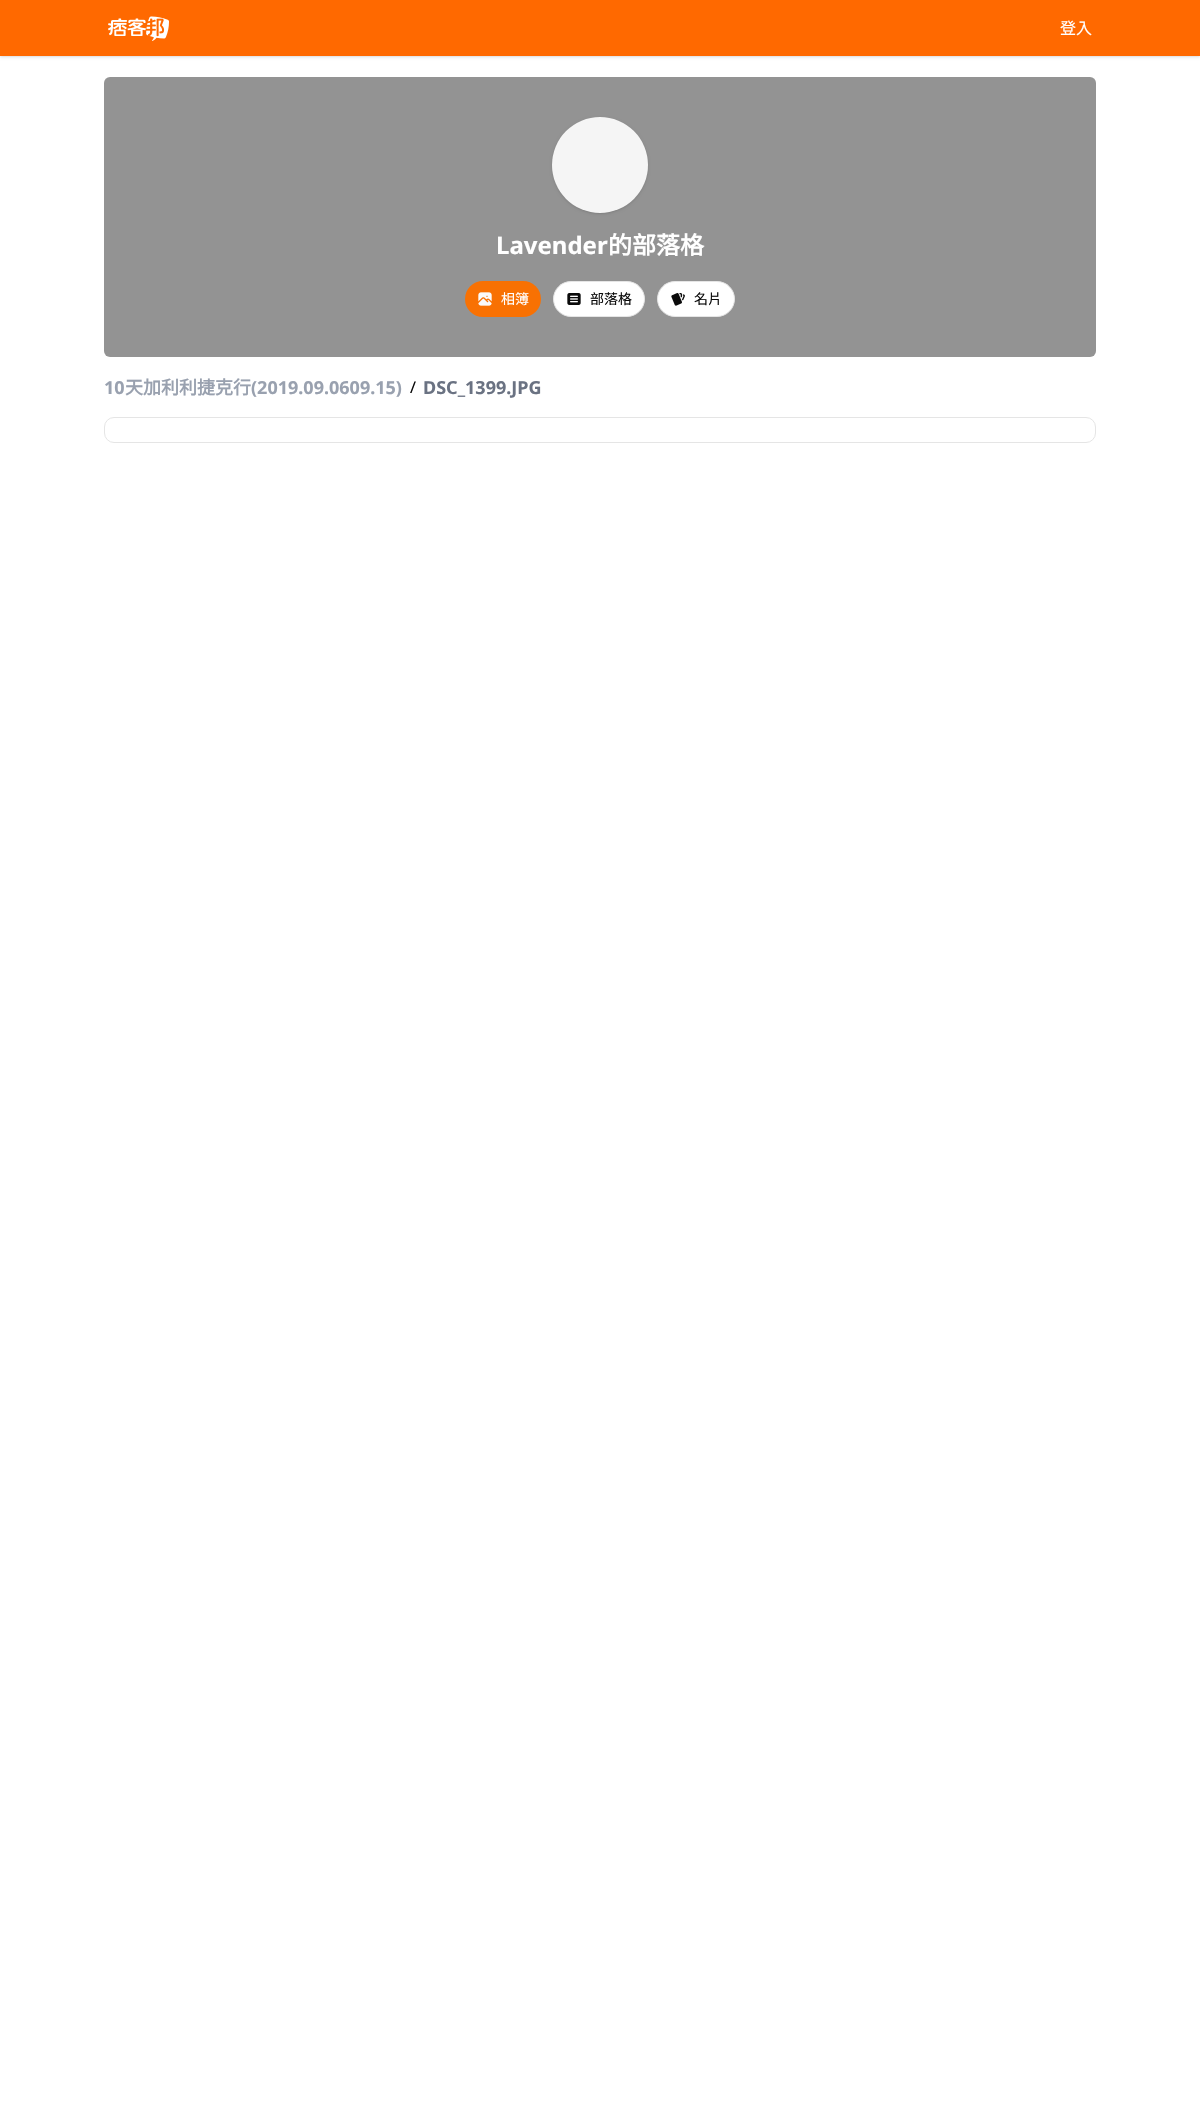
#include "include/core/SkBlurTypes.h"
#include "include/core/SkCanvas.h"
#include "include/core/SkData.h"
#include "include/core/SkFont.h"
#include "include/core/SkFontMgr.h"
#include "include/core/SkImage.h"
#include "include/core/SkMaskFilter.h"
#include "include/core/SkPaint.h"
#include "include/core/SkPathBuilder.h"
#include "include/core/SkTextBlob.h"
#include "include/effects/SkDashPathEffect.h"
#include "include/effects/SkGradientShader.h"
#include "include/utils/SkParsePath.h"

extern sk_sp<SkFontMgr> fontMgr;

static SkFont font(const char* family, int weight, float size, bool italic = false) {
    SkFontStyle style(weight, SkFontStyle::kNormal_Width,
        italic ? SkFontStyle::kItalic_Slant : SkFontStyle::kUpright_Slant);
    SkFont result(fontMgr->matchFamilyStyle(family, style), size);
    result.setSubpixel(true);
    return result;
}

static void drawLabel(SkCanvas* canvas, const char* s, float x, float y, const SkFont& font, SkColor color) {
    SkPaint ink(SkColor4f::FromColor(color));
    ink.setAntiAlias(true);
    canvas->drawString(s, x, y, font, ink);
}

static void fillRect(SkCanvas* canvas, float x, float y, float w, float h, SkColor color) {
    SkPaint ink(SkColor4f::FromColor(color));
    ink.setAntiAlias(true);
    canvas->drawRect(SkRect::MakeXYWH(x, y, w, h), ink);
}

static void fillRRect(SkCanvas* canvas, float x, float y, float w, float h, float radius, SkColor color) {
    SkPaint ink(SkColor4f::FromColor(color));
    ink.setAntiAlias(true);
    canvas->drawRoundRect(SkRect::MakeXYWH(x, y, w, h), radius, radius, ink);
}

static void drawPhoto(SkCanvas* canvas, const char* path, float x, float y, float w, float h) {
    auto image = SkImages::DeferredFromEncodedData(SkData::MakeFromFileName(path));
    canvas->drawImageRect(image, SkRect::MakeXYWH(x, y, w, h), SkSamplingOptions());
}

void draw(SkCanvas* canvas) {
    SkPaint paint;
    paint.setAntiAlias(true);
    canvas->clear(0xFFFFFFFF);
    paint.setColor(0x1A000000);
    paint.setMaskFilter(SkMaskFilter::MakeBlur(kNormal_SkBlurStyle, 1));
    canvas->drawRect(SkRect::MakeXYWH(1, 2, 1198, 54), paint);
    paint.setMaskFilter(nullptr);
    paint.setMaskFilter(SkMaskFilter::MakeBlur(kNormal_SkBlurStyle, 1.5f));
    canvas->drawRect(SkRect::MakeXYWH(0, 1, 1200, 56), paint);
    paint.setMaskFilter(nullptr);
    fillRect(canvas, 0, 0, 1200, 56, 0xFFFF6900);
    drawPhoto(canvas, "assets/img1.png", 108, 16, 61, 25);
    SkFont font1 = font("Noto Sans CJK TC", 400, 16);
    drawLabel(canvas, "登入", 1060, 34, font1, 0xFFFFFFFF);
    fillRRect(canvas, 104, 77, 992, 280, 6, 0xFF939393);
    paint.setMaskFilter(SkMaskFilter::MakeBlur(kNormal_SkBlurStyle, 1));
    canvas->drawRoundRect(SkRect::MakeXYWH(553, 119, 94, 94), 47, 47, paint);
    paint.setMaskFilter(nullptr);
    paint.setMaskFilter(SkMaskFilter::MakeBlur(kNormal_SkBlurStyle, 1.5f));
    canvas->drawRoundRect(SkRect::MakeXYWH(552, 118, 96, 96), 48, 48, paint);
    paint.setMaskFilter(nullptr);
    paint.setColor(0xFFF5F5F5);
    canvas->drawCircle(600, 165, 48, paint);
    SkFont font2 = font("Noto Sans", 700, 24);
    drawLabel(canvas, "Lavender", 496, 254, font2, 0xFFFFFFFF);
    SkFont font3 = font("Noto Sans CJK TC", 700, 24);
    drawLabel(canvas, "的部落格", 608, 254, font3, 0xFFFFFFFF);
    fillRRect(canvas, 465, 281, 76, 36, 18, 0xFFF87103);
    drawPhoto(canvas, "assets/img2.png", 478, 292, 14, 14);
    SkFont font4 = font("Noto Sans CJK TC", 400, 14);
    drawLabel(canvas, "相簿", 501, 304, font4, 0xFFFFFFFF);
    paint.setColor(0xFFFFFFFF);
    canvas->drawRoundRect(SkRect::MakeXYWH(553.5f, 281.5f, 91, 35), 17.5f, 17.5f, paint);
    paint.setStroke(true);
    paint.setStrokeWidth(1);
    paint.setColor(0xFFE5E5E5);
    canvas->drawRoundRect(SkRect::MakeXYWH(553.5f, 281.5f, 91, 35), 17.5f, 17.5f, paint);
    drawPhoto(canvas, "assets/img3.png", 567, 293, 14, 12);
    drawLabel(canvas, "部落格", 590, 304, font4, 0xFF0A0A0A);
    paint.setStroke(false);
    paint.setColor(0xFFFFFFFF);
    canvas->drawRoundRect(SkRect::MakeXYWH(657.5f, 281.5f, 77, 35), 17.5f, 17.5f, paint);
    paint.setStroke(true);
    paint.setColor(0xFFE5E5E5);
    canvas->drawRoundRect(SkRect::MakeXYWH(657.5f, 281.5f, 77, 35), 17.5f, 17.5f, paint);
    drawPhoto(canvas, "assets/img4.png", 671, 293, 14, 13);
    drawLabel(canvas, "名片", 694, 304, font4, 0xFF0A0A0A);
    SkFont font5 = font("Noto Sans", 700, 18);
    drawLabel(canvas, "10", 104, 394, font5, 0xFF99A1AF);
    SkFont font6 = font("Noto Sans CJK TC", 700, 18);
    drawLabel(canvas, "天加利利捷克行", 125, 394, font6, 0xFF99A1AF);
    drawLabel(canvas, "(2019.09.0609.15)", 251, 394, font5, 0xFF99A1AF);
    SkFont font7 = font("Noto Sans", 400, 16);
    drawLabel(canvas, "/", 410, 393, font7, 0xFF0A0A0A);
    drawLabel(canvas, "DSC_1399.JPG", 423, 394, font5, 0xFF6A7282);
    canvas->drawRoundRect(SkRect::MakeXYWH(104.5f, 417.5f, 991, 25), 9.5f, 9.5f, paint);
}
